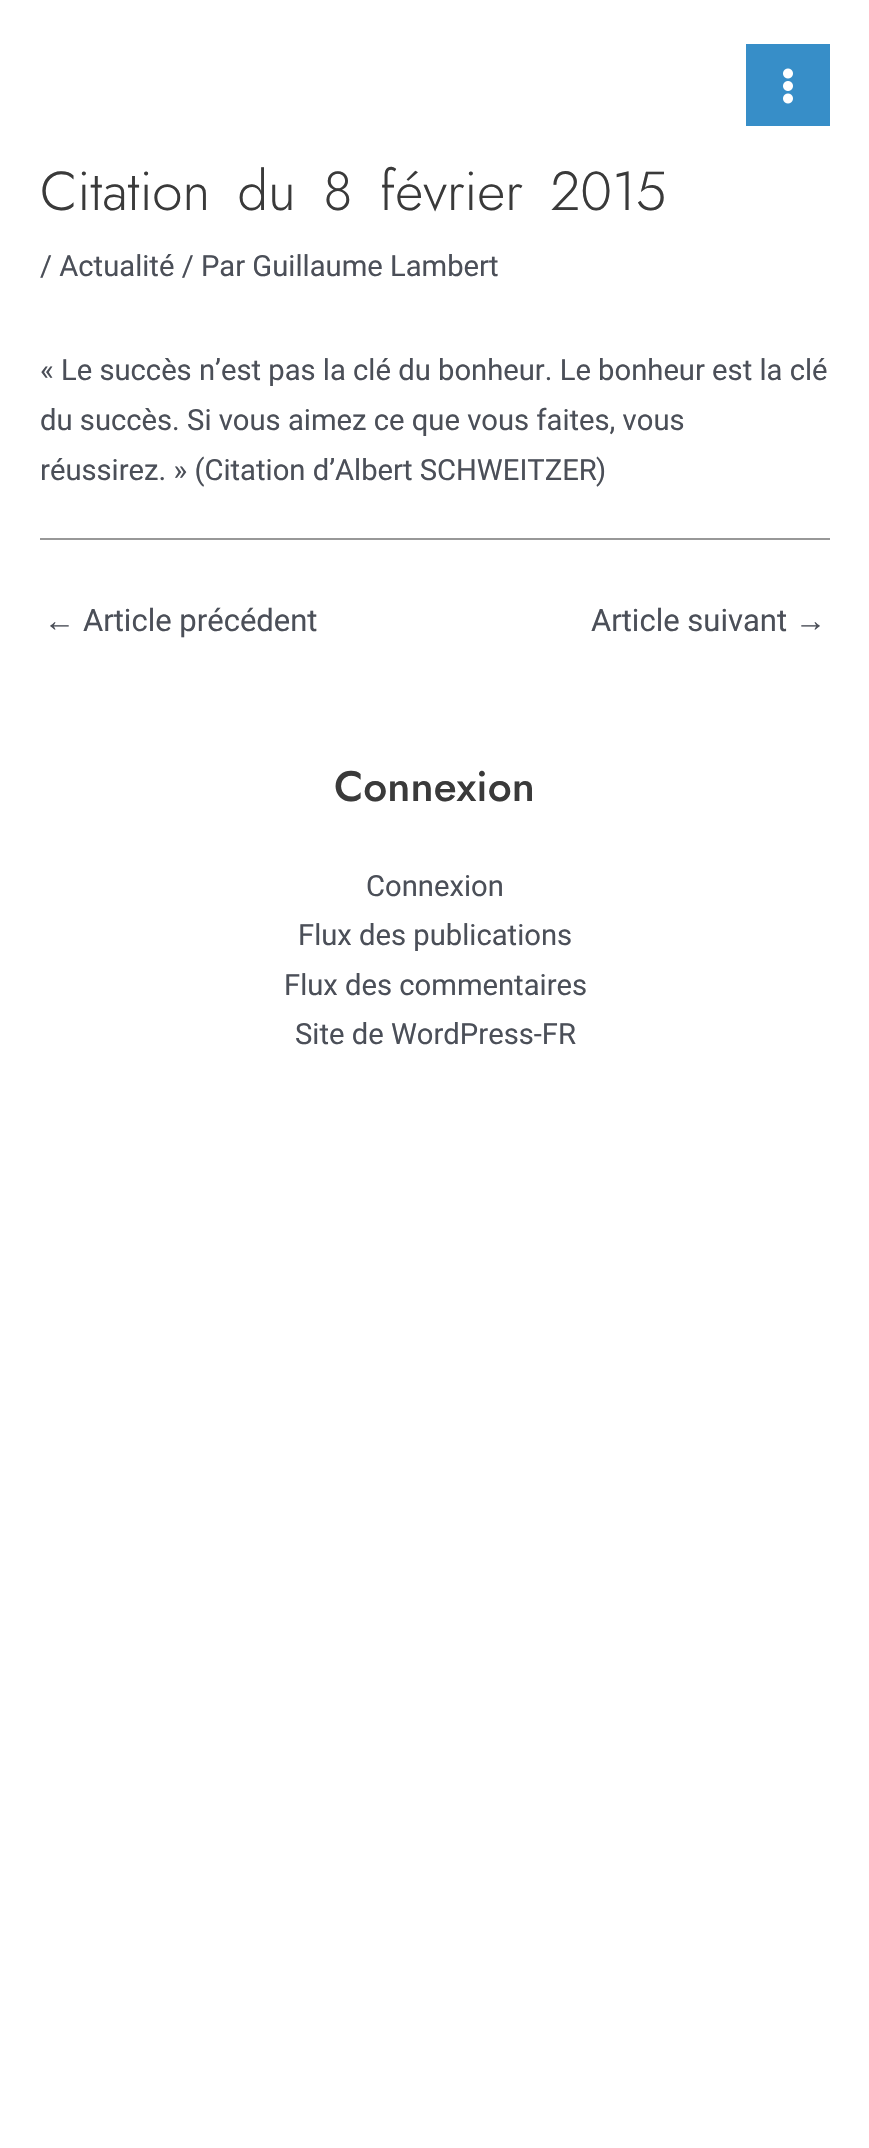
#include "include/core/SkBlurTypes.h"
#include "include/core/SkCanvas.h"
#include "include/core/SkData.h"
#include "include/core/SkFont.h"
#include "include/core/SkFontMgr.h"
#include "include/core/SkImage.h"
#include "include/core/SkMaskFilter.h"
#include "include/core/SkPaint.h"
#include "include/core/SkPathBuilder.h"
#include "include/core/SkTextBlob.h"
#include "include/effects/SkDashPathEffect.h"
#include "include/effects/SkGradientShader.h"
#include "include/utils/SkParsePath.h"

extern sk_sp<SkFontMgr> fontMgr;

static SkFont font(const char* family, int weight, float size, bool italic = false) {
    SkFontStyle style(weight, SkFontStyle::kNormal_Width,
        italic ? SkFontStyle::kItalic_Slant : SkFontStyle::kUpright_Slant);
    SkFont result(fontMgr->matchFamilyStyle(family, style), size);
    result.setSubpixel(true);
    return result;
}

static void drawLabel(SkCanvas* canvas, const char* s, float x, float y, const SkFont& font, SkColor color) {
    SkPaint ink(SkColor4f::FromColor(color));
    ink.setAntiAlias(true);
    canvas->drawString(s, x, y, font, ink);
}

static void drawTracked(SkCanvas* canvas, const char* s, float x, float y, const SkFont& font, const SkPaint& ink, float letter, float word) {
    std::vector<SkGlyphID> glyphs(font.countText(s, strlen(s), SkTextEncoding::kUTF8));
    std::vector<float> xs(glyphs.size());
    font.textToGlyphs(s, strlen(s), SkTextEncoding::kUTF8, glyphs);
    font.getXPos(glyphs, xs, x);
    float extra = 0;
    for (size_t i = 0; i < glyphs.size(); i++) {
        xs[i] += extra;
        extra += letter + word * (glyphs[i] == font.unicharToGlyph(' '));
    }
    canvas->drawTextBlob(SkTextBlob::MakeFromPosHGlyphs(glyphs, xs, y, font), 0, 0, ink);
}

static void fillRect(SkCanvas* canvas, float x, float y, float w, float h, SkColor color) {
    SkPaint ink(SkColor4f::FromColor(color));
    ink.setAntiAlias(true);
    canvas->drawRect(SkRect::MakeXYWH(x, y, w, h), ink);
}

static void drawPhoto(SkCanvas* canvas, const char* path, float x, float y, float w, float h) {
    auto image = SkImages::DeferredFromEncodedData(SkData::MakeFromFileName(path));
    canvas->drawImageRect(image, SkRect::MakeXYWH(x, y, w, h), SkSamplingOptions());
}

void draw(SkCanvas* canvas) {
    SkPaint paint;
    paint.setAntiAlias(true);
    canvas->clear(0xFFFFFFFF);
    fillRect(canvas, 746, 44, 84, 82, 0xFF378EC8);
    drawPhoto(canvas, "assets/img1.png", 783, 68, 10, 36);
    SkFont font1 = font("Jost", 300, 54.75f);
    paint.setColor(0xFF3A3A3A);
    drawTracked(canvas, "Citation du 8 février 2015", 40, 210, font1, paint, 0, 11);
    SkFont font2 = font("Roboto", 400, 29.2f);
    drawLabel(canvas, "/ Actualité / Par Guillaume Lambert", 40, 276, font2, 0xFF4B4F58);
    drawLabel(canvas, "« Le succès n’est pas la clé du bonheur. Le bonheur est la clé", 40, 380, font2, 0xFF4B4F58);
    drawLabel(canvas, "du succès. Si vous aimez ce que vous faites, vous", 40, 430, font2, 0xFF4B4F58);
    drawLabel(canvas, "réussirez. » (Citation d’Albert SCHWEITZER", 40, 480, font2, 0xFF4B4F58);
    drawLabel(canvas, ")", 596, 480, font2, 0xFF4B4F58);
    fillRect(canvas, 40, 538, 790, 2, 0xFF989898);
    SkFont font3 = font("Liberation Sans", 400, 31);
    drawLabel(canvas, "←", 44, 631, font3, 0xFF4B4F58);
    SkFont font4 = font("Roboto", 400, 31);
    drawLabel(canvas, "Article précédent", 83, 631, font4, 0xFF4B4F58);
    drawLabel(canvas, "Article suivant", 591, 631, font4, 0xFF4B4F58);
    drawLabel(canvas, "→", 795, 631, font3, 0xFF4B4F58);
    SkFont font5 = font("Jost", 500, 42.5f);
    drawLabel(canvas, "Connexion", 334, 801, font5, 0xFF3A3A3A);
    drawLabel(canvas, "Connexion", 366, 896, font2, 0xFF4B4F58);
    drawLabel(canvas, "Flux des publications", 298, 945, font2, 0xFF4B4F58);
    drawLabel(canvas, "Flux des commentaires", 284, 995, font2, 0xFF4B4F58);
    drawLabel(canvas, "Site de WordPress-FR", 295, 1044, font2, 0xFF4B4F58);
}
